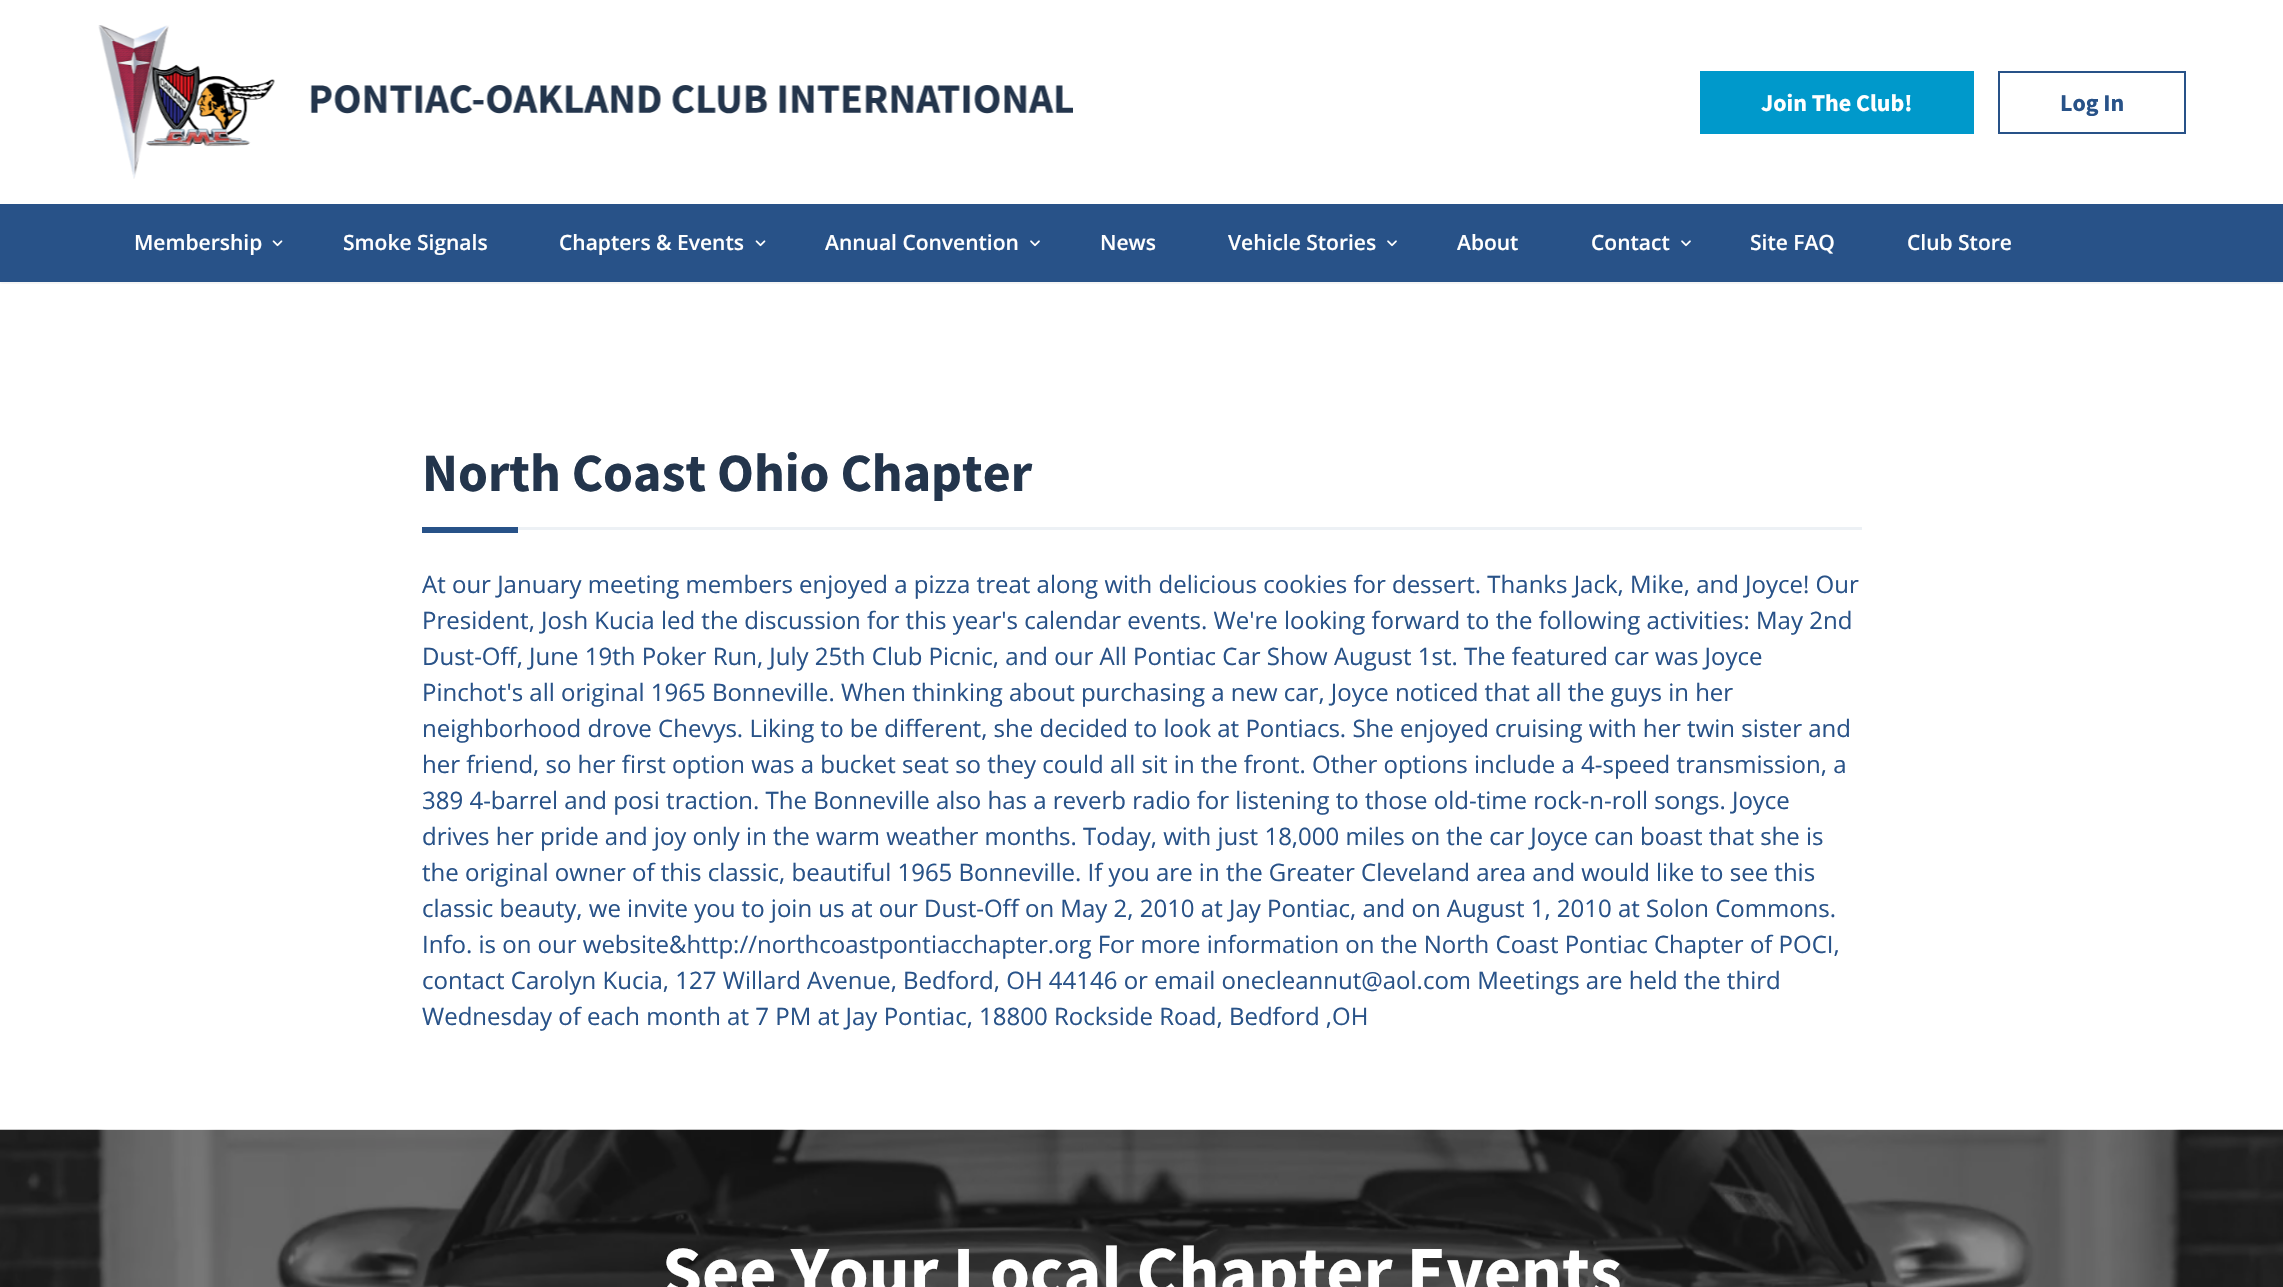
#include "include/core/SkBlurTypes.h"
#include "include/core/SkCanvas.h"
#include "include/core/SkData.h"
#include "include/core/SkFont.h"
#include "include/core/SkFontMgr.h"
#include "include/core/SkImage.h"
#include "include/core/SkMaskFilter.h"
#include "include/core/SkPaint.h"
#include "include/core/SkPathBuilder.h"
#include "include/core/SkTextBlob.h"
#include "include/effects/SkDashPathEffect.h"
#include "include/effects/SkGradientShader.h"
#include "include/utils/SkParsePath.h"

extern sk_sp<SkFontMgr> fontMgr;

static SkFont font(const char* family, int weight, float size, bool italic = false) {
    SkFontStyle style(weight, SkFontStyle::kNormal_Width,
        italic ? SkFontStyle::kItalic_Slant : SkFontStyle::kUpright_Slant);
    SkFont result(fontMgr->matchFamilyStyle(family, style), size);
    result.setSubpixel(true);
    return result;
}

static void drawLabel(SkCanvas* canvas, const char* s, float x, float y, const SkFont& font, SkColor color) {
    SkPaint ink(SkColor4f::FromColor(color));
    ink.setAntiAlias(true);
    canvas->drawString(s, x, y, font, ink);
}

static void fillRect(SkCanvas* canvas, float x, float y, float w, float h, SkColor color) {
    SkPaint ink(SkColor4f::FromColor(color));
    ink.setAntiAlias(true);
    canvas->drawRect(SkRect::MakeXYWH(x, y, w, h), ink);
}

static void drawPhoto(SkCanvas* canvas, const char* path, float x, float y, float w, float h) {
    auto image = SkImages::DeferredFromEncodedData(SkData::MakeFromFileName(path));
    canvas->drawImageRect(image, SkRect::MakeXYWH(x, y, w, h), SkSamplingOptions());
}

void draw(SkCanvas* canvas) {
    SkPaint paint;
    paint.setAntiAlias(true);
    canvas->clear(0xFFFFFFFF);
    canvas->save();
    canvas->clipRect(SkRect::MakeXYWH(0, 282, 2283, 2));
    paint.setColor(0x0D000000);
    paint.setMaskFilter(SkMaskFilter::MakeBlur(kNormal_SkBlurStyle, 1.5f));
    canvas->drawRect(SkRect::MakeXYWH(0, 2, 2283, 282), paint);
    paint.setMaskFilter(nullptr);
    canvas->restore();
    drawPhoto(canvas, "assets/img1.png", 98, 25, 975, 154);
    fillRect(canvas, 1700, 71, 274, 63, 0xFF0099CB);
    SkFont font1 = font("Source Sans Pro", 700, 24);
    drawLabel(canvas, "Join The Club!", 1761, 111, font1, 0xFFFFFFFF);
    paint.setStroke(true);
    paint.setStrokeWidth(2);
    paint.setColor(0xFF285288);
    canvas->drawRect(SkRect::MakeXYWH(1999, 72, 186, 61), paint);
    drawLabel(canvas, "Log In", 2060, 111, font1, 0xFF285288);
    fillRect(canvas, 0, 204, 2283, 78, 0xFF285288);
    SkFont font2 = font("Open Sans", 600, 21);
    drawLabel(canvas, "Membership", 134, 250, font2, 0xFFFFFFFF);
    drawPhoto(canvas, "assets/img2.png", 272, 240, 11, 7);
    drawLabel(canvas, "Smoke Signals", 343, 250, font2, 0xFFFFFFFF);
    drawLabel(canvas, "Chapters & Events", 559, 250, font2, 0xFFFFFFFF);
    drawPhoto(canvas, "assets/img2.png", 755, 240, 11, 7);
    drawLabel(canvas, "Annual Convention", 825, 250, font2, 0xFFFFFFFF);
    drawPhoto(canvas, "assets/img3.png", 1030, 240, 10, 7);
    drawLabel(canvas, "News", 1100, 250, font2, 0xFFFFFFFF);
    drawLabel(canvas, "Vehicle Stories", 1228, 250, font2, 0xFFFFFFFF);
    drawPhoto(canvas, "assets/img3.png", 1387, 240, 10, 7);
    drawLabel(canvas, "About", 1457, 250, font2, 0xFFFFFFFF);
    drawLabel(canvas, "Contact", 1591, 250, font2, 0xFFFFFFFF);
    drawPhoto(canvas, "assets/img3.png", 1681, 240, 10, 7);
    drawLabel(canvas, "Site FAQ", 1750, 250, font2, 0xFFFFFFFF);
    drawLabel(canvas, "Club Store", 1907, 250, font2, 0xFFFFFFFF);
    SkFont font3 = font("Source Sans Pro", 700, 54);
    drawLabel(canvas, "North Coast Ohio Chapter", 422, 491, font3, 0xFF23354C);
    fillRect(canvas, 422, 527, 96, 6, 0xFF285288);
    fillRect(canvas, 518, 527, 1344, 3, 0xFFEDF1F5);
    SkFont font4 = font("Open Sans", 400, 24);
    drawLabel(canvas, "At our January meeting members enjoyed a pizza treat along with delicious cookies for dessert. Thanks Jack, Mike, and Joyce! Our", 422, 593, font4, 0xFF285288);
    drawLabel(canvas, "President, Josh Kucia led the discussion for this year's calendar events. We're looking forward to the following activities: May 2nd", 422, 629, font4, 0xFF285288);
    drawLabel(canvas, "Dust-Off, June 19th Poker Run, July 25th Club Picnic, and our All Pontiac Car Show August 1st. The featured car was Joyce", 422, 665, font4, 0xFF285288);
    drawLabel(canvas, "Pinchot's all original 1965 Bonneville. When thinking about purchasing a new car, Joyce noticed that all the guys in her", 422, 701, font4, 0xFF285288);
    drawLabel(canvas, "neighborhood drove Chevys. Liking to be different, she decided to look at Pontiacs. She enjoyed cruising with her twin sister and", 422, 737, font4, 0xFF285288);
    drawLabel(canvas, "her friend, so her first option was a bucket seat so they could all sit in the front. Other options include a 4-speed transmission, a", 422, 773, font4, 0xFF285288);
    drawLabel(canvas, "389 4-barrel and posi traction. The Bonneville also has a reverb radio for listening to those old-time rock-n-roll songs. Joyce", 422, 809, font4, 0xFF285288);
    drawLabel(canvas, "drives her pride and joy only in the warm weather months. Today, with just 18,000 miles on the car Joyce can boast that she is", 422, 845, font4, 0xFF285288);
    drawLabel(canvas, "the original owner of this classic, beautiful 1965 Bonneville. If you are in the Greater Cleveland area and would like to see this", 422, 881, font4, 0xFF285288);
    drawLabel(canvas, "classic beauty, we invite you to join us at our Dust-Off on May 2, 2010 at Jay Pontiac, and on August 1, 2010 at Solon Commons.", 422, 917, font4, 0xFF285288);
    drawLabel(canvas, "Info. is on our website&http://northcoastpontiacchapter.org For more information on the North Coast Pontiac Chapter of POCI,", 422, 953, font4, 0xFF285288);
    drawLabel(canvas, "contact Carolyn Kucia, 127 Willard Avenue, Bedford, OH 44146 or email onecleannut@aol.com Meetings are held the third", 422, 989, font4, 0xFF285288);
    drawLabel(canvas, "Wednesday of each month at 7 PM at Jay Pontiac, 18800 Rockside Road, Bedford ,OH", 422, 1025, font4, 0xFF285288);
    fillRect(canvas, 0, 1130, 2283, 157, 0xFF212121);
    drawPhoto(canvas, "assets/img4.png", 0, 1129, 2283, 158);
    SkFont font5 = font("Source Sans Pro", 700, 72);
    drawLabel(canvas, "See Your Local Chapter Events", 662, 1296, font5, 0xFFFFFFFF);
}
